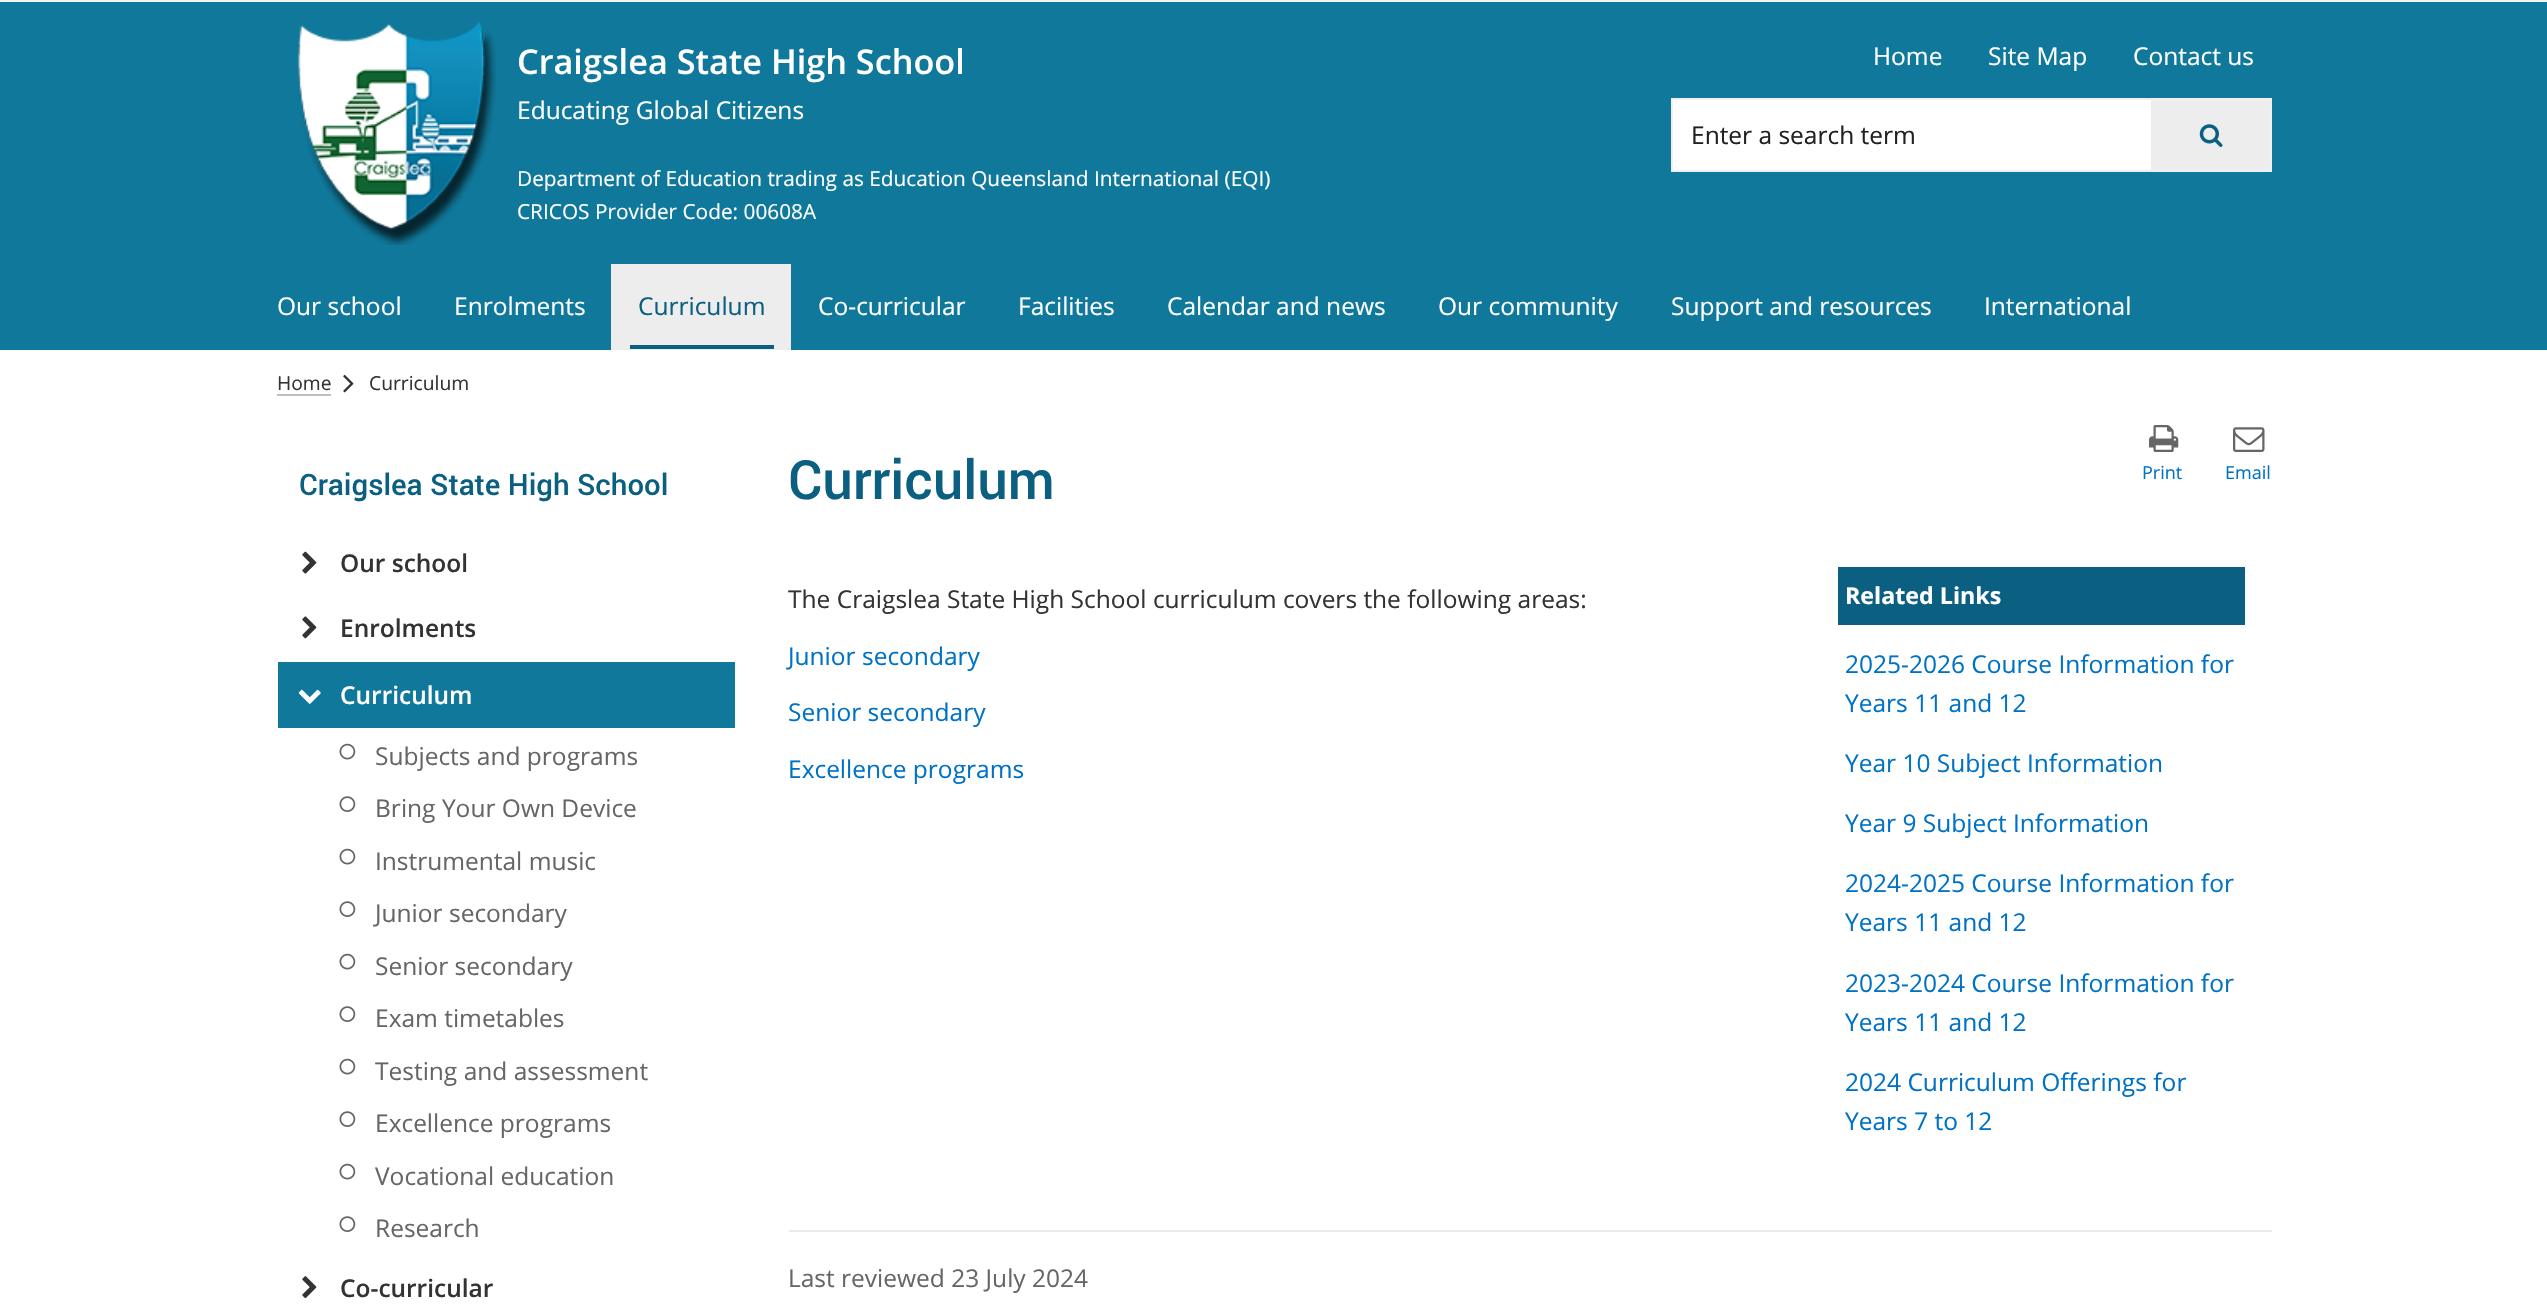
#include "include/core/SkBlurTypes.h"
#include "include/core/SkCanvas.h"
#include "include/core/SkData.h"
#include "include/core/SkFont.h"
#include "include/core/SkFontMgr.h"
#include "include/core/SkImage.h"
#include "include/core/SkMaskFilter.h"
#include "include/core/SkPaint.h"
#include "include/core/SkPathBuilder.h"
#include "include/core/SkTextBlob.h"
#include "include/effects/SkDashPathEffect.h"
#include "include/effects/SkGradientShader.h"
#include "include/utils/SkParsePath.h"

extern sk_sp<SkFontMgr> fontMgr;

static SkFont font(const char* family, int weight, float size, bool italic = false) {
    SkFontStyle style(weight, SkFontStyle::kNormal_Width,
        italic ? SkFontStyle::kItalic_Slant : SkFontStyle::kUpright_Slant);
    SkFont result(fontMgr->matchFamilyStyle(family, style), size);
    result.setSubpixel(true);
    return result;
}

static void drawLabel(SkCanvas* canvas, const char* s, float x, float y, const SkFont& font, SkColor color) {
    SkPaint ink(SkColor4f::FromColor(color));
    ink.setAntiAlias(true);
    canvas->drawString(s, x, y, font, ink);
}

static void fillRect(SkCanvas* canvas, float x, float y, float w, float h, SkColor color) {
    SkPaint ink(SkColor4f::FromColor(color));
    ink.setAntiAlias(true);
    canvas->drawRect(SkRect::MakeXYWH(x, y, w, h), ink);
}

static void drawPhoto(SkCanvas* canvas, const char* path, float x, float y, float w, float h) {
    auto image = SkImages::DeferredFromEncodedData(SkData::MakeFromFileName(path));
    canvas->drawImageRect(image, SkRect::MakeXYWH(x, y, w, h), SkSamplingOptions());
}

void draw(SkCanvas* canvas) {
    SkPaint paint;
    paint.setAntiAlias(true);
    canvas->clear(0xFFFFFFFF);
    fillRect(canvas, 0, 0, 2547, 2, 0xFFF3F3F3);
    fillRect(canvas, 0, 2, 2547, 348, 0xFF10789A);
    drawPhoto(canvas, "assets/img1.png", 298, 21, 198, 224);
    SkFont font1 = font("Open Sans", 600, 34.25f);
    drawLabel(canvas, "Craigslea State High School", 517, 74, font1, 0xFFFFFFFF);
    SkFont font2 = font("Open Sans", 400, 24.5f);
    drawLabel(canvas, "Educating Global Citizens", 517, 119, font2, 0xFFFFFFFF);
    SkFont font3 = font("Open Sans", 400, 20.8f);
    drawLabel(canvas, "Department of Education trading as Education Queensland International (EQI)", 517, 186, font3, 0xFFFFFFFF);
    drawLabel(canvas, "CRICOS Provider Code: 00608A", 517, 219, font3, 0xFFFFFFFF);
    drawLabel(canvas, "Home", 1873, 65, font2, 0xFFFFFFFF);
    drawLabel(canvas, "Site Map", 1988, 65, font2, 0xFFFFFFFF);
    drawLabel(canvas, "Contact us", 2133, 65, font2, 0xFFFFFFFF);
    paint.setStroke(true);
    paint.setStrokeWidth(2);
    paint.setColor(0xFFEFEFEF);
    canvas->drawRect(SkRect::MakeXYWH(1672, 99, 599, 72), paint);
    fillRect(canvas, 1673, 100, 478, 70, 0xFFFFFFFF);
    drawLabel(canvas, "Enter a search term", 1691, 144, font2, 0xFF212121);
    fillRect(canvas, 2151, 100, 119, 70, 0xFFEDEDED);
    drawPhoto(canvas, "assets/img2.png", 2199, 124, 24, 23);
    drawLabel(canvas, "Our school", 277, 315, font2, 0xFFFFFFFF);
    drawLabel(canvas, "Enrolments", 454, 315, font2, 0xFFFFFFFF);
    fillRect(canvas, 611, 264, 180, 86, 0xFFEDEDED);
    drawLabel(canvas, "Curriculum", 638, 315, font2, 0xFF0B5F80);
    fillRect(canvas, 630, 345, 144, 4, 0xFF0B5F80);
    drawLabel(canvas, "Co-curricular", 818, 315, font2, 0xFFFFFFFF);
    drawLabel(canvas, "Facilities", 1018, 315, font2, 0xFFFFFFFF);
    drawLabel(canvas, "Calendar and news", 1167, 315, font2, 0xFFFFFFFF);
    drawLabel(canvas, "Our community", 1438, 315, font2, 0xFFFFFFFF);
    drawLabel(canvas, "Support and resources", 1671, 315, font2, 0xFFFFFFFF);
    drawLabel(canvas, "International", 1984, 315, font2, 0xFFFFFFFF);
    SkFont font4 = font("Open Sans", 400, 19.25f);
    drawLabel(canvas, "Home", 277, 390, font4, 0xFF333333);
    fillRect(canvas, 277, 394, 54, 2, 0xFFBFBFBF);
    drawPhoto(canvas, "assets/img3.png", 343, 374, 11, 19);
    drawLabel(canvas, "Curriculum", 369, 390, font4, 0xFF333333);
    SkFont font5 = font("Roboto", 500, 29.4f);
    drawLabel(canvas, "Craigslea State High School", 299, 495, font5, 0xFF0B5F80);
    drawPhoto(canvas, "assets/img4.png", 302, 551, 15, 23);
    SkFont font6 = font("Open Sans", 600, 24.5f);
    drawLabel(canvas, "Our school", 340, 572, font6, 0xFF333333);
    drawPhoto(canvas, "assets/img5.png", 302, 616, 15, 23);
    drawLabel(canvas, "Enrolments", 340, 637, font6, 0xFF333333);
    fillRect(canvas, 278, 662, 457, 66, 0xFF10789A);
    drawPhoto(canvas, "assets/img6.png", 298, 689, 23, 15);
    drawLabel(canvas, "Curriculum", 340, 704, font6, 0xFFFFFFFF);
    drawPhoto(canvas, "assets/img7.png", 339, 743, 17, 17);
    drawLabel(canvas, "Subjects and programs", 375, 765, font2, 0xFF666666);
    drawPhoto(canvas, "assets/img8.png", 339, 796, 17, 16);
    drawLabel(canvas, "Bring Your Own Device", 375, 817, font2, 0xFF666666);
    drawPhoto(canvas, "assets/img7.png", 339, 848, 17, 17);
    drawLabel(canvas, "Instrumental music", 375, 870, font2, 0xFF666666);
    drawPhoto(canvas, "assets/img8.png", 339, 901, 17, 16);
    drawLabel(canvas, "Junior secondary", 375, 922, font2, 0xFF666666);
    drawPhoto(canvas, "assets/img7.png", 339, 953, 17, 17);
    drawLabel(canvas, "Senior secondary", 375, 975, font2, 0xFF666666);
    drawPhoto(canvas, "assets/img8.png", 339, 1006, 17, 16);
    drawLabel(canvas, "Exam timetables", 375, 1027, font2, 0xFF666666);
    drawPhoto(canvas, "assets/img7.png", 339, 1058, 17, 17);
    drawLabel(canvas, "Testing and assessment", 375, 1080, font2, 0xFF666666);
    drawPhoto(canvas, "assets/img8.png", 339, 1111, 17, 16);
    drawLabel(canvas, "Excellence programs", 375, 1132, font2, 0xFF666666);
    drawPhoto(canvas, "assets/img7.png", 339, 1163, 17, 17);
    drawLabel(canvas, "Vocational education", 375, 1185, font2, 0xFF666666);
    drawPhoto(canvas, "assets/img8.png", 339, 1216, 17, 16);
    drawLabel(canvas, "Research", 375, 1237, font2, 0xFF666666);
    drawPhoto(canvas, "assets/img9.png", 302, 1276, 15, 23);
    drawLabel(canvas, "Co-curricular", 340, 1297, font6, 0xFF333333);
    SkFont font7 = font("Roboto", 500, 54);
    drawLabel(canvas, "Curriculum", 788, 499, font7, 0xFF0B5F80);
    drawPhoto(canvas, "assets/img10.png", 2149, 425, 30, 27);
    SkFont font8 = font("Open Sans", 400, 18);
    drawLabel(canvas, "Print", 2142, 479, font8, 0xFF0072C6);
    drawPhoto(canvas, "assets/img11.png", 2233, 427, 32, 25);
    drawLabel(canvas, "Email", 2225, 479, font8, 0xFF0072C6);
    drawLabel(canvas, "The Craigslea State High School curriculum covers the following areas:", 788, 608, font2, 0xFF333333);
    drawLabel(canvas, "Junior secondary", 788, 665, font2, 0xFF0072C6);
    drawLabel(canvas, "Senior secondary", 788, 721, font2, 0xFF0072C6);
    drawLabel(canvas, "Excellence programs", 788, 778, font2, 0xFF0072C6);
    fillRect(canvas, 1838, 567, 407, 58, 0xFF0B5F80);
    SkFont font9 = font("Open Sans", 700, 23.25f);
    drawLabel(canvas, "Related Links", 1845, 604, font9, 0xFFFFFFFF);
    drawLabel(canvas, "2025-2026 Course Information for", 1845, 673, font2, 0xFF0072C6);
    drawLabel(canvas, "Years 11 and 12", 1845, 712, font2, 0xFF0072C6);
    drawLabel(canvas, "Year 10 Subject Information", 1845, 772, font2, 0xFF0072C6);
    drawLabel(canvas, "Year 9 Subject Information", 1845, 832, font2, 0xFF0072C6);
    drawLabel(canvas, "2024-2025 Course Information for", 1845, 892, font2, 0xFF0072C6);
    drawLabel(canvas, "Years 11 and 12", 1845, 931, font2, 0xFF0072C6);
    drawLabel(canvas, "2023-2024 Course Information for", 1845, 992, font2, 0xFF0072C6);
    drawLabel(canvas, "Years 11 and 12", 1845, 1031, font2, 0xFF0072C6);
    drawLabel(canvas, "2024 Curriculum Offerings for", 1845, 1091, font2, 0xFF0072C6);
    drawLabel(canvas, "Years 7 to 12", 1845, 1130, font2, 0xFF0072C6);
    fillRect(canvas, 789, 1230, 1483, 2, 0xFFEAEAEA);
    drawLabel(canvas, "Last reviewed 23 July 2024", 788, 1287, font2, 0xFF666666);
}
